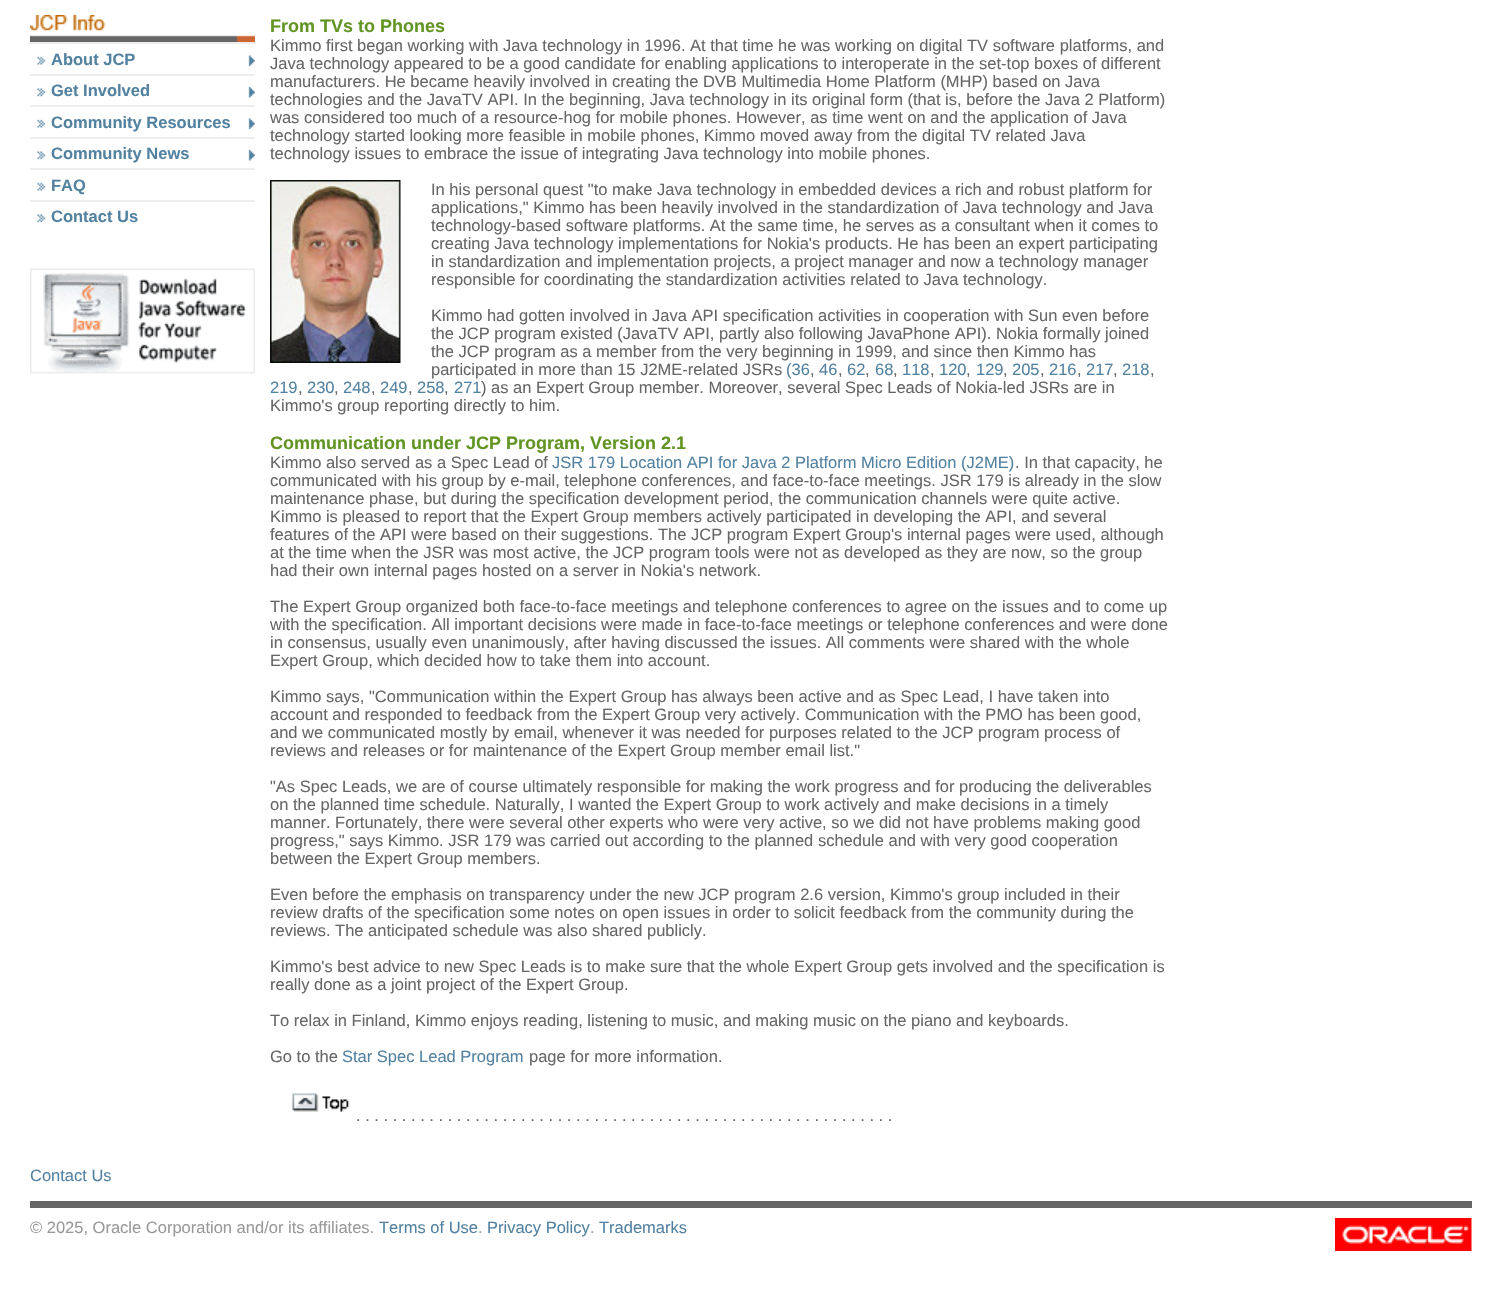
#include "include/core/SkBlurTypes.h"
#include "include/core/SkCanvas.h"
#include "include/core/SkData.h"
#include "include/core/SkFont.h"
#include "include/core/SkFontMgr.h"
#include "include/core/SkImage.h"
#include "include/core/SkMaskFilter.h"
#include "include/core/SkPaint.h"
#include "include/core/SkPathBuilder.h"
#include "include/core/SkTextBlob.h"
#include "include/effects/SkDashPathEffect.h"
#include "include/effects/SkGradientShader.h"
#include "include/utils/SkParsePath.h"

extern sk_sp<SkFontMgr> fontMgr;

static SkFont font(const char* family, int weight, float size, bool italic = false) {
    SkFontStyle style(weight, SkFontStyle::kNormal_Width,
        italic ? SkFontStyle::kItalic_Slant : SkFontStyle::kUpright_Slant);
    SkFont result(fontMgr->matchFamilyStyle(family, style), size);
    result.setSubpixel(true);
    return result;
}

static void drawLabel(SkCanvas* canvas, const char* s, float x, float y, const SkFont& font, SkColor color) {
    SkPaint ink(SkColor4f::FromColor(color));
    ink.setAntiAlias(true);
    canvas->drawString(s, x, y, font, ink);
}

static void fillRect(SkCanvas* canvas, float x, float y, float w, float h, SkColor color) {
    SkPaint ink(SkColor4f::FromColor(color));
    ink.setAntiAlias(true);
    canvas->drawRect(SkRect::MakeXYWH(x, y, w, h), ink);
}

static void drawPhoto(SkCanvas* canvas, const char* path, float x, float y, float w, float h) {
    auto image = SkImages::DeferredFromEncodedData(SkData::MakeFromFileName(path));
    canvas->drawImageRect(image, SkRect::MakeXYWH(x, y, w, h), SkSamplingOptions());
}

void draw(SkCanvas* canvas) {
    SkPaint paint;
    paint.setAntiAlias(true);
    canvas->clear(0xFFFFFFFF);
    drawPhoto(canvas, "assets/img1.png", 30, 15, 225, 27);
    drawPhoto(canvas, "assets/img2.png", 37, 55, 218, 11);
    fillRect(canvas, 30, 42, 225, 2, 0xFFEDEDED);
    SkFont font1 = font("Liberation Sans", 700, 16.5f);
    drawLabel(canvas, "About JCP", 51, 65, font1, 0xFF5382A1);
    drawPhoto(canvas, "assets/img3.png", 37, 87, 218, 11);
    fillRect(canvas, 30, 74, 225, 2, 0xFFEDEDED);
    drawLabel(canvas, "Get Involved", 51, 96, font1, 0xFF5382A1);
    drawPhoto(canvas, "assets/img2.png", 37, 118, 218, 11);
    fillRect(canvas, 30, 105, 225, 2, 0xFFEDEDED);
    drawLabel(canvas, "Community Resources", 51, 128, font1, 0xFF5382A1);
    drawPhoto(canvas, "assets/img3.png", 37, 150, 218, 11);
    fillRect(canvas, 30, 137, 225, 2, 0xFFEDEDED);
    drawLabel(canvas, "Community News", 51, 159, font1, 0xFF5382A1);
    drawPhoto(canvas, "assets/img4.png", 37, 182, 9, 9);
    fillRect(canvas, 30, 168, 225, 2, 0xFFEDEDED);
    drawLabel(canvas, "FAQ", 51, 191, font1, 0xFF5382A1);
    drawPhoto(canvas, "assets/img5.png", 37, 214, 9, 9);
    fillRect(canvas, 30, 200, 225, 2, 0xFFEDEDED);
    drawLabel(canvas, "Contact Us", 51, 222, font1, 0xFF5382A1);
    drawPhoto(canvas, "assets/img6.png", 30, 268, 225, 106);
    SkFont font2 = font("Liberation Sans", 700, 18);
    drawLabel(canvas, "From TVs to Phones", 270, 32, font2, 0xFF619423);
    SkFont font3 = font("Liberation Sans", 400, 16.5f);
    drawLabel(canvas, "Kimmo first began working with Java technology in 1996. At that time he was working on digital TV software platforms, and", 270, 51, font3, 0xFF666666);
    drawLabel(canvas, "Java technology appeared to be a good candidate for enabling applications to interoperate in the set-top boxes of different", 270, 69, font3, 0xFF666666);
    drawLabel(canvas, "manufacturers. He became heavily involved in creating the DVB Multimedia Home Platform (MHP) based on Java", 270, 87, font3, 0xFF666666);
    drawLabel(canvas, "technologies and the JavaTV API. In the beginning, Java technology in its original form (that is, before the Java 2 Platform)", 270, 105, font3, 0xFF666666);
    drawLabel(canvas, "was considered too much of a resource-hog for mobile phones. However, as time went on and the application of Java", 270, 123, font3, 0xFF666666);
    drawLabel(canvas, "technology started looking more feasible in mobile phones, Kimmo moved away from the digital TV related Java", 270, 141, font3, 0xFF666666);
    drawLabel(canvas, "technology issues to embrace the issue of integrating Java technology into mobile phones.", 270, 159, font3, 0xFF666666);
    drawPhoto(canvas, "assets/img7.png", 270, 180, 131, 183);
    drawLabel(canvas, "In his personal quest \"to make Java technology in embedded devices a rich and robust platform for", 431, 195, font3, 0xFF666666);
    drawLabel(canvas, "applications,\" Kimmo has been heavily involved in the standardization of Java technology and Java", 431, 213, font3, 0xFF666666);
    drawLabel(canvas, "technology-based software platforms. At the same time, he serves as a consultant when it comes to", 431, 231, font3, 0xFF666666);
    drawLabel(canvas, "creating Java technology implementations for Nokia's products. He has been an expert participating", 431, 249, font3, 0xFF666666);
    drawLabel(canvas, "in standardization and implementation projects, a project manager and now a technology manager", 431, 267, font3, 0xFF666666);
    drawLabel(canvas, "responsible for coordinating the standardization activities related to Java technology.", 431, 285, font3, 0xFF666666);
    drawLabel(canvas, "Kimmo had gotten involved in Java API specification activities in cooperation with Sun even before", 431, 321, font3, 0xFF666666);
    drawLabel(canvas, "the JCP program existed (JavaTV API, partly also following JavaPhone API). Nokia formally joined", 431, 339, font3, 0xFF666666);
    drawLabel(canvas, "the JCP program as a member from the very beginning in 1999, and since then Kimmo has", 431, 357, font3, 0xFF666666);
    drawLabel(canvas, "participated in more than 15 J2ME-related JSRs", 431, 375, font3, 0xFF666666);
    drawLabel(canvas, "(36", 786, 375, font3, 0xFF5382A1);
    drawLabel(canvas, ",", 810, 375, font3, 0xFF666666);
    drawLabel(canvas, "46", 819, 375, font3, 0xFF5382A1);
    drawLabel(canvas, ",", 838, 375, font3, 0xFF666666);
    drawLabel(canvas, "62", 847, 375, font3, 0xFF5382A1);
    drawLabel(canvas, ",", 865, 375, font3, 0xFF666666);
    drawLabel(canvas, "68", 875, 375, font3, 0xFF5382A1);
    drawLabel(canvas, ",", 893, 375, font3, 0xFF666666);
    drawLabel(canvas, "118", 902, 375, font3, 0xFF5382A1);
    drawLabel(canvas, ",", 930, 375, font3, 0xFF666666);
    drawLabel(canvas, "120", 939, 375, font3, 0xFF5382A1);
    drawLabel(canvas, ",", 966, 375, font3, 0xFF666666);
    drawLabel(canvas, "129", 976, 375, font3, 0xFF5382A1);
    drawLabel(canvas, ",", 1003, 375, font3, 0xFF666666);
    drawLabel(canvas, "205", 1012, 375, font3, 0xFF5382A1);
    drawLabel(canvas, ",", 1040, 375, font3, 0xFF666666);
    drawLabel(canvas, "216", 1049, 375, font3, 0xFF5382A1);
    drawLabel(canvas, ",", 1077, 375, font3, 0xFF666666);
    drawLabel(canvas, "217", 1086, 375, font3, 0xFF5382A1);
    drawLabel(canvas, ",", 1113, 375, font3, 0xFF666666);
    drawLabel(canvas, "218", 1122, 375, font3, 0xFF5382A1);
    drawLabel(canvas, ",", 1150, 375, font3, 0xFF666666);
    drawLabel(canvas, "219", 270, 393, font3, 0xFF5382A1);
    drawLabel(canvas, ",", 298, 393, font3, 0xFF666666);
    drawLabel(canvas, "230", 307, 393, font3, 0xFF5382A1);
    drawLabel(canvas, ",", 334, 393, font3, 0xFF666666);
    drawLabel(canvas, "248", 343, 393, font3, 0xFF5382A1);
    drawLabel(canvas, ",", 371, 393, font3, 0xFF666666);
    drawLabel(canvas, "249", 380, 393, font3, 0xFF5382A1);
    drawLabel(canvas, ",", 408, 393, font3, 0xFF666666);
    drawLabel(canvas, "258", 417, 393, font3, 0xFF5382A1);
    drawLabel(canvas, ",", 444, 393, font3, 0xFF666666);
    drawLabel(canvas, "271", 454, 393, font3, 0xFF5382A1);
    drawLabel(canvas, ") as an Expert Group member. Moreover, several Spec Leads of Nokia-led JSRs are in", 481, 393, font3, 0xFF666666);
    drawLabel(canvas, "Kimmo's group reporting directly to him.", 270, 411, font3, 0xFF666666);
    drawLabel(canvas, "Communication under JCP Program, Version 2.1", 270, 449, font2, 0xFF619423);
    drawLabel(canvas, "Kimmo also served as a Spec Lead of", 270, 468, font3, 0xFF666666);
    drawLabel(canvas, "JSR 179 Location API for Java 2 Platform Micro Edition (J2ME)", 552, 468, font3, 0xFF5382A1);
    drawLabel(canvas, ". In that capacity, he", 1015, 468, font3, 0xFF666666);
    drawLabel(canvas, "communicated with his group by e-mail, telephone conferences, and face-to-face meetings. JSR 179 is already in the slow", 270, 486, font3, 0xFF666666);
    drawLabel(canvas, "maintenance phase, but during the specification development period, the communication channels were quite active.", 270, 504, font3, 0xFF666666);
    drawLabel(canvas, "Kimmo is pleased to report that the Expert Group members actively participated in developing the API, and several", 270, 522, font3, 0xFF666666);
    drawLabel(canvas, "features of the API were based on their suggestions. The JCP program Expert Group's internal pages were used, although", 270, 540, font3, 0xFF666666);
    drawLabel(canvas, "at the time when the JSR was most active, the JCP program tools were not as developed as they are now, so the group", 270, 558, font3, 0xFF666666);
    drawLabel(canvas, "had their own internal pages hosted on a server in Nokia's network.", 270, 576, font3, 0xFF666666);
    drawLabel(canvas, "The Expert Group organized both face-to-face meetings and telephone conferences to agree on the issues and to come up", 270, 612, font3, 0xFF666666);
    drawLabel(canvas, "with the specification. All important decisions were made in face-to-face meetings or telephone conferences and were done", 270, 630, font3, 0xFF666666);
    drawLabel(canvas, "in consensus, usually even unanimously, after having discussed the issues. All comments were shared with the whole", 270, 648, font3, 0xFF666666);
    drawLabel(canvas, "Expert Group, which decided how to take them into account.", 270, 666, font3, 0xFF666666);
    drawLabel(canvas, "Kimmo says, \"Communication within the Expert Group has always been active and as Spec Lead, I have taken into", 270, 702, font3, 0xFF666666);
    drawLabel(canvas, "account and responded to feedback from the Expert Group very actively. Communication with the PMO has been good,", 270, 720, font3, 0xFF666666);
    drawLabel(canvas, "and we communicated mostly by email, whenever it was needed for purposes related to the JCP program process of", 270, 738, font3, 0xFF666666);
    drawLabel(canvas, "reviews and releases or for maintenance of the Expert Group member email list.\"", 270, 756, font3, 0xFF666666);
    drawLabel(canvas, "\"As Spec Leads, we are of course ultimately responsible for making the work progress and for producing the deliverables", 270, 792, font3, 0xFF666666);
    drawLabel(canvas, "on the planned time schedule. Naturally, I wanted the Expert Group to work actively and make decisions in a timely", 270, 810, font3, 0xFF666666);
    drawLabel(canvas, "manner. Fortunately, there were several other experts who were very active, so we did not have problems making good", 270, 828, font3, 0xFF666666);
    drawLabel(canvas, "progress,\" says Kimmo. JSR 179 was carried out according to the planned schedule and with very good cooperation", 270, 846, font3, 0xFF666666);
    drawLabel(canvas, "between the Expert Group members.", 270, 864, font3, 0xFF666666);
    drawLabel(canvas, "Even before the emphasis on transparency under the new JCP program 2.6 version, Kimmo's group included in their", 270, 900, font3, 0xFF666666);
    drawLabel(canvas, "review drafts of the specification some notes on open issues in order to solicit feedback from the community during the", 270, 918, font3, 0xFF666666);
    drawLabel(canvas, "reviews. The anticipated schedule was also shared publicly.", 270, 936, font3, 0xFF666666);
    drawLabel(canvas, "Kimmo's best advice to new Spec Leads is to make sure that the whole Expert Group gets involved and the specification is", 270, 972, font3, 0xFF666666);
    drawLabel(canvas, "really done as a joint project of the Expert Group.", 270, 990, font3, 0xFF666666);
    drawLabel(canvas, "To relax in Finland, Kimmo enjoys reading, listening to music, and making music on the piano and keyboards.", 270, 1026, font3, 0xFF666666);
    drawLabel(canvas, "Go to the", 270, 1062, font3, 0xFF666666);
    drawLabel(canvas, "Star Spec Lead Program", 342, 1062, font3, 0xFF5382A1);
    drawLabel(canvas, "page for more information.", 529, 1062, font3, 0xFF666666);
    drawPhoto(canvas, "assets/img8.png", 292, 1093, 58, 19);
    drawLabel(canvas, ". . . . . . . . . . . . . . . . . . . . . . . . . . . . . . . . . . . . . . . . . . . . . . . . . . . . . . . . . . .", 356, 1121, font3, 0xFF666666);
    drawLabel(canvas, "Contact Us", 30, 1181, font3, 0xFF5382A1);
    fillRect(canvas, 30, 1201, 1442, 7, 0xFF666666);
    drawLabel(canvas, "© 2025, Oracle Corporation and/or its affiliates.", 30, 1233, font3, 0xFF999999);
    drawLabel(canvas, "Terms of Use", 379, 1233, font3, 0xFF5382A1);
    drawLabel(canvas, ".", 478, 1233, font3, 0xFF999999);
    drawLabel(canvas, "Privacy Policy", 487, 1233, font3, 0xFF5382A1);
    drawLabel(canvas, ".", 590, 1233, font3, 0xFF999999);
    drawLabel(canvas, "Trademarks", 599, 1233, font3, 0xFF5382A1);
    drawPhoto(canvas, "assets/img9.png", 1335, 1218, 137, 33);
}
